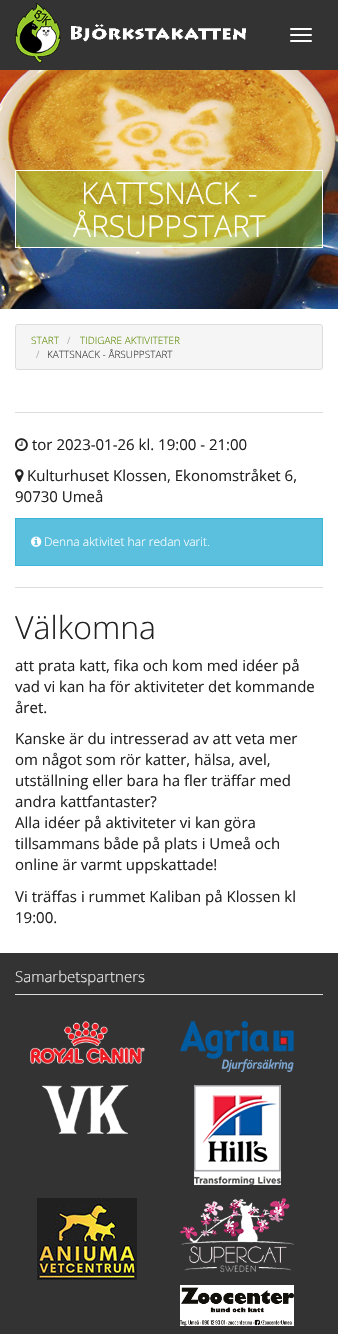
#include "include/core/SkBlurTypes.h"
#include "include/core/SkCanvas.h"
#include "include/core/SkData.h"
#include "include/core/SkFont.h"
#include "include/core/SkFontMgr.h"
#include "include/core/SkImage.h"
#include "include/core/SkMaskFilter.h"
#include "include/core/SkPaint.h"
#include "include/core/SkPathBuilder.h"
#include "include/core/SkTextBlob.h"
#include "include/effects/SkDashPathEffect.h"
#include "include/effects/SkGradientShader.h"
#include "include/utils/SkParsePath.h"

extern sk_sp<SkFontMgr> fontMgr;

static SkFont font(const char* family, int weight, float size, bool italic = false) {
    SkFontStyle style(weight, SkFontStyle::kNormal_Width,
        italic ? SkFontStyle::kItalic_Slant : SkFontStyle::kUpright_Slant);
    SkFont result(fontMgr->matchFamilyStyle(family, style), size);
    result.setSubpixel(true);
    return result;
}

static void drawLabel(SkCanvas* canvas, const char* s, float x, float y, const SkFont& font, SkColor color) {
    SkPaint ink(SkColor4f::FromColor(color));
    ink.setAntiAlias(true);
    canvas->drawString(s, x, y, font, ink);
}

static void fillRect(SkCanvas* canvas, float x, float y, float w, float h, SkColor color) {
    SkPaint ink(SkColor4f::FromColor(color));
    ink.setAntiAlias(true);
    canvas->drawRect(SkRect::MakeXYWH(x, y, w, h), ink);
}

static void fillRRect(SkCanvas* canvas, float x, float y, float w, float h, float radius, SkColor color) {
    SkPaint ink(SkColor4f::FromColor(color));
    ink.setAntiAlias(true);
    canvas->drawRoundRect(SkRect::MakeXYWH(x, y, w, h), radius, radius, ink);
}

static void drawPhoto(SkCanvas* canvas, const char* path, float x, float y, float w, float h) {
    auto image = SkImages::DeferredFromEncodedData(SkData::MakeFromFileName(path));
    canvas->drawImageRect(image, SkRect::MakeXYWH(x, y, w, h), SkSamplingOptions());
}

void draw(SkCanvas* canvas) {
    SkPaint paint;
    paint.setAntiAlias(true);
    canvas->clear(0xFFFFFFFF);
    fillRect(canvas, 0, 0, 338, 70, 0xFF333333);
    drawPhoto(canvas, "assets/img1.png", 15, 3, 46, 60);
    drawPhoto(canvas, "assets/img2.png", 71, 24, 175, 18);
    fillRRect(canvas, 290, 28, 22, 2, 1, 0xFFFFFFFF);
    fillRRect(canvas, 290, 34, 22, 2, 1, 0xFFFFFFFF);
    fillRRect(canvas, 290, 40, 22, 2, 1, 0xFFFFFFFF);
    drawPhoto(canvas, "assets/img3.png", 0, 70, 338, 239);
    paint.setColor(0x6696C72D);
    canvas->drawRect(SkRect::MakeXYWH(15.5f, 170.5f, 307, 77), paint);
    paint.setStroke(true);
    paint.setStrokeWidth(1);
    paint.setColor(0xFFFFFFFF);
    canvas->drawRect(SkRect::MakeXYWH(15.5f, 170.5f, 307, 77), paint);
    SkFont font1 = font("Open Sans", 300, 30);
    drawLabel(canvas, "KATTSNACK -", 81, 204, font1, 0xFFFFFFFF);
    drawLabel(canvas, "ÅRSUPPSTART", 73, 237, font1, 0xFFFFFFFF);
    paint.setStroke(false);
    paint.setColor(0xFFF5F5F5);
    canvas->drawRoundRect(SkRect::MakeXYWH(15.5f, 324.5f, 307, 45), 2.5f, 2.5f, paint);
    paint.setStroke(true);
    paint.setColor(0xFFDDDDDD);
    canvas->drawRoundRect(SkRect::MakeXYWH(15.5f, 324.5f, 307, 45), 2.5f, 2.5f, paint);
    SkFont font2 = font("Open Sans", 300, 10);
    drawLabel(canvas, "START", 31, 344, font2, 0xFF5C8A03);
    drawLabel(canvas, "/", 67, 344, font2, 0xFF999999);
    drawLabel(canvas, "TIDIGARE AKTIVITETER", 80, 344, font2, 0xFF5C8A03);
    drawLabel(canvas, "/", 36, 358, font2, 0xFF999999);
    drawLabel(canvas, "KATTSNACK - ÅRSUPPSTART", 47, 358, font2, 0xFF333333);
    fillRect(canvas, 15, 412, 308, 1, 0xFFDDDDDD);
    drawPhoto(canvas, "assets/img4.png", 15, 438, 13, 14);
    SkFont font3 = font("Open Sans", 400, 15);
    drawLabel(canvas, "tor 2023-01-26 kl. 19:00 - 21:00", 32, 450, font3, 0xFF222222);
    drawPhoto(canvas, "assets/img5.png", 15, 469, 9, 13);
    drawLabel(canvas, "Kulturhuset Klossen, Ekonomstråket 6,", 27, 481, font3, 0xFF222222);
    drawLabel(canvas, "90730 Umeå", 15, 502, font3, 0xFF222222);
    paint.setStroke(false);
    paint.setColor(0xFF5BC0DE);
    canvas->drawRect(SkRect::MakeXYWH(15.5f, 518.5f, 307, 47), paint);
    paint.setStroke(true);
    paint.setColor(0xFF3DB5D8);
    canvas->drawRect(SkRect::MakeXYWH(15.5f, 518.5f, 307, 47), paint);
    drawPhoto(canvas, "assets/img6.png", 31, 536, 11, 11);
    SkFont font4 = font("Open Sans", 300, 12);
    drawLabel(canvas, "Denna aktivitet har redan varit.", 44, 546, font4, 0xFFFFFFFF);
    fillRect(canvas, 15, 587, 308, 1, 0xFFDDDDDD);
    SkFont font5 = font("Open Sans", 300, 32);
    drawLabel(canvas, "Välkomna", 15, 639, font5, 0xFF222222);
    drawLabel(canvas, "att prata katt, fika och kom med idéer på", 15, 671, font3, 0xFF222222);
    drawLabel(canvas, "vad vi kan ha för aktiviteter det kommande", 15, 692, font3, 0xFF222222);
    drawLabel(canvas, "året.", 15, 713, font3, 0xFF222222);
    drawLabel(canvas, "Kanske är du intresserad av att veta mer", 15, 744, font3, 0xFF222222);
    drawLabel(canvas, "om något som rör katter, hälsa, avel,", 15, 765, font3, 0xFF222222);
    drawLabel(canvas, "utställning eller bara ha fler träffar med", 15, 786, font3, 0xFF222222);
    drawLabel(canvas, "andra kattfantaster?", 15, 807, font3, 0xFF222222);
    drawLabel(canvas, "Alla idéer på aktiviteter vi kan göra", 15, 828, font3, 0xFF222222);
    drawLabel(canvas, "tillsammans både på plats i Umeå och", 15, 849, font3, 0xFF222222);
    drawLabel(canvas, "online är varmt uppskattade!", 15, 870, font3, 0xFF222222);
    drawLabel(canvas, "Vi träffas i rummet Kaliban på Klossen kl", 15, 902, font3, 0xFF222222);
    drawLabel(canvas, "19:00.", 15, 923, font3, 0xFF222222);
    fillRect(canvas, 0, 953, 338, 381, 0xFF333333);
    fillRect(canvas, 15, 994, 308, 1, 0xFFDDDDDD);
    SkFont font6 = font("Open Sans", 300, 15);
    drawLabel(canvas, "Samarbetspartners", 15, 982, font6, 0xFFEEEEEE);
    drawPhoto(canvas, "assets/img7.png", 30, 1021, 115, 43);
    drawPhoto(canvas, "assets/img8.png", 180, 1021, 114, 51);
    drawPhoto(canvas, "assets/img9.png", 42, 1085, 87, 49);
    drawPhoto(canvas, "assets/img10.png", 194, 1085, 87, 100);
    drawPhoto(canvas, "assets/img11.png", 37, 1198, 100, 82);
    drawPhoto(canvas, "assets/img12.png", 180, 1198, 114, 74);
    drawPhoto(canvas, "assets/img13.png", 180, 1285, 114, 41);
}
